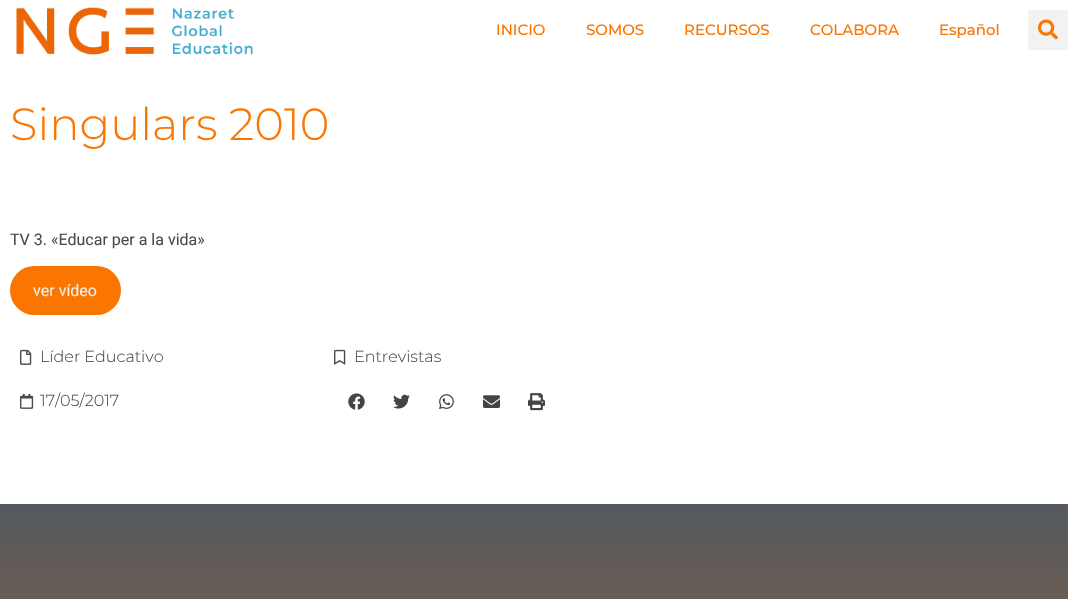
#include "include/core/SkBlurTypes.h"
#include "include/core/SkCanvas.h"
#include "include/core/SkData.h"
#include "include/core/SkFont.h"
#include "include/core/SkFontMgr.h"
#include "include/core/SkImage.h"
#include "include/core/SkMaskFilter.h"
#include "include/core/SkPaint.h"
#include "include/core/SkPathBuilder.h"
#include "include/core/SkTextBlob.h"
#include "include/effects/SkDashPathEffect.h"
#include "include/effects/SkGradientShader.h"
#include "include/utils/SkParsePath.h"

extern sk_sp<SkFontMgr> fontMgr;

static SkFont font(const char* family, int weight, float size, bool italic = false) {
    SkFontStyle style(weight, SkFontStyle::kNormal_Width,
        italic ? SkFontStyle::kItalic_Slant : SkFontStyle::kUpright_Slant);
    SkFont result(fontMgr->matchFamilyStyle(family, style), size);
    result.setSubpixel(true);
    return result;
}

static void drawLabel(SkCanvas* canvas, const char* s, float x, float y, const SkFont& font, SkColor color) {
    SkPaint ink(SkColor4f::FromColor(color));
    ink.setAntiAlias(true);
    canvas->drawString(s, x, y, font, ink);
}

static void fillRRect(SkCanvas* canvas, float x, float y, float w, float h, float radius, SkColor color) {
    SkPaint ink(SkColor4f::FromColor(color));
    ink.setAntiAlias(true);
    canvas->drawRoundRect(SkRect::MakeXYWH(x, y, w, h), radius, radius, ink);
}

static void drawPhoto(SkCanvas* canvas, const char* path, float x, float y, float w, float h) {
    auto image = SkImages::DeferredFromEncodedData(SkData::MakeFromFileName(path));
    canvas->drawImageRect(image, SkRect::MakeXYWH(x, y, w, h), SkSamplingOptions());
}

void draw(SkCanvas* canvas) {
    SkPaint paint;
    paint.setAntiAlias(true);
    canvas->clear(0xFFFFFFFF);
    drawPhoto(canvas, "assets/img1.png", 16, 7, 237, 48);
    SkFont font1 = font("Montserrat", 500, 15);
    drawLabel(canvas, "INICIO", 496, 35, font1, 0xFFFB7600);
    drawLabel(canvas, "SOMOS", 586, 35, font1, 0xFFFB7600);
    drawLabel(canvas, "RECURSOS", 684, 35, font1, 0xFFFB7600);
    drawLabel(canvas, "COLABORA", 810, 35, font1, 0xFFFB7600);
    drawLabel(canvas, "Español", 939, 35, font1, 0xFFFB7600);
    fillRRect(canvas, 1028, 10, 40, 40, 3, 0xFFF2F2F2);
    drawPhoto(canvas, "assets/img2.png", 1038, 19, 20, 21);
    SkFont font2 = font("Montserrat", 300, 45);
    drawLabel(canvas, "Singulars 2010", 10, 140, font2, 0xFFFB7600);
    SkFont font3 = font("Roboto", 400, 16);
    drawLabel(canvas, "TV 3. «Educar per a la vida»", 10, 245, font3, 0xFF4A4A4A);
    fillRRect(canvas, 10, 266, 111, 49, 24.5f, 0xFFFB7600);
    drawLabel(canvas, "ver vídeo", 33, 296, font3, 0xFFEEEEEE);
    drawPhoto(canvas, "assets/img3.png", 20, 349, 12, 16);
    SkFont font4 = font("Montserrat", 300, 16);
    drawLabel(canvas, "Líder Educativo", 40, 362, font4, 0xFF4A4A4A);
    drawPhoto(canvas, "assets/img4.png", 20, 393, 14, 16);
    drawLabel(canvas, "17/05/2017", 40, 406, font4, 0xFF4A4A4A);
    drawPhoto(canvas, "assets/img5.png", 334, 349, 12, 16);
    drawLabel(canvas, "Entrevistas", 354, 362, font4, 0xFF4A4A4A);
    drawPhoto(canvas, "assets/img6.png", 348, 393, 17, 17);
    drawPhoto(canvas, "assets/img7.png", 393, 394, 17, 15);
    drawPhoto(canvas, "assets/img8.png", 439, 394, 15, 15);
    drawPhoto(canvas, "assets/img9.png", 483, 395, 17, 13);
    drawPhoto(canvas, "assets/img10.png", 528, 393, 17, 18);
    {
        const SkColor colors[] = {0xFF54595F, 0xFFFB7600};
        const float stops[] = {0, 1};
        const SkPoint ends[] = {{534, 504}, {534, 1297}};
        paint.setShader(SkGradientShader::MakeLinear(ends, colors, stops, 2, SkTileMode::kClamp));
        paint.setAlpha(255);
    }
    canvas->drawRect(SkRect::MakeXYWH(0, 504, 1068, 95), paint);
}
